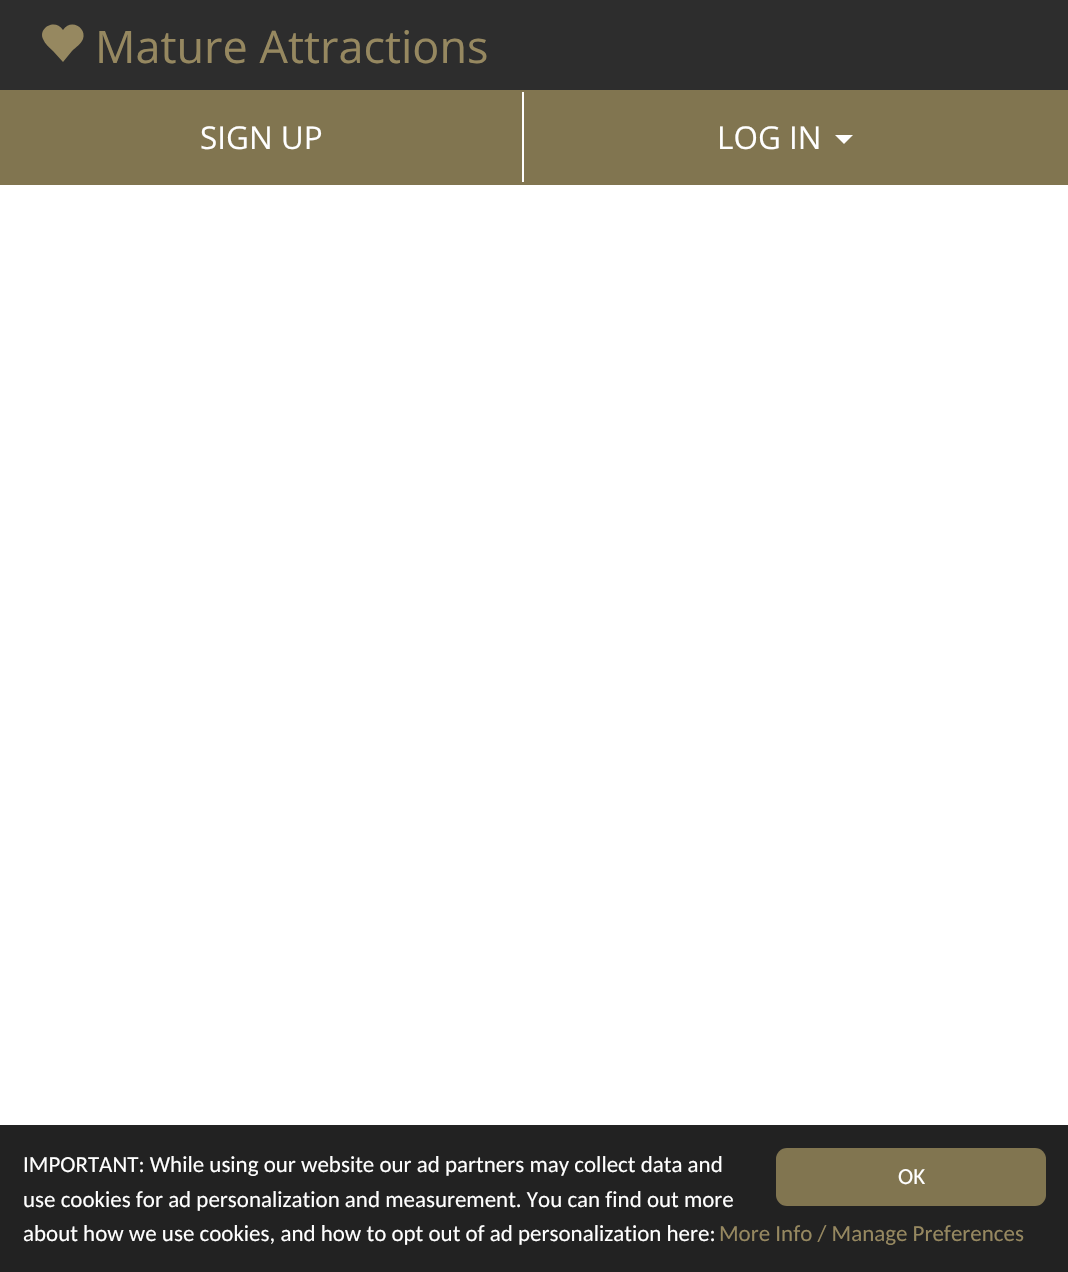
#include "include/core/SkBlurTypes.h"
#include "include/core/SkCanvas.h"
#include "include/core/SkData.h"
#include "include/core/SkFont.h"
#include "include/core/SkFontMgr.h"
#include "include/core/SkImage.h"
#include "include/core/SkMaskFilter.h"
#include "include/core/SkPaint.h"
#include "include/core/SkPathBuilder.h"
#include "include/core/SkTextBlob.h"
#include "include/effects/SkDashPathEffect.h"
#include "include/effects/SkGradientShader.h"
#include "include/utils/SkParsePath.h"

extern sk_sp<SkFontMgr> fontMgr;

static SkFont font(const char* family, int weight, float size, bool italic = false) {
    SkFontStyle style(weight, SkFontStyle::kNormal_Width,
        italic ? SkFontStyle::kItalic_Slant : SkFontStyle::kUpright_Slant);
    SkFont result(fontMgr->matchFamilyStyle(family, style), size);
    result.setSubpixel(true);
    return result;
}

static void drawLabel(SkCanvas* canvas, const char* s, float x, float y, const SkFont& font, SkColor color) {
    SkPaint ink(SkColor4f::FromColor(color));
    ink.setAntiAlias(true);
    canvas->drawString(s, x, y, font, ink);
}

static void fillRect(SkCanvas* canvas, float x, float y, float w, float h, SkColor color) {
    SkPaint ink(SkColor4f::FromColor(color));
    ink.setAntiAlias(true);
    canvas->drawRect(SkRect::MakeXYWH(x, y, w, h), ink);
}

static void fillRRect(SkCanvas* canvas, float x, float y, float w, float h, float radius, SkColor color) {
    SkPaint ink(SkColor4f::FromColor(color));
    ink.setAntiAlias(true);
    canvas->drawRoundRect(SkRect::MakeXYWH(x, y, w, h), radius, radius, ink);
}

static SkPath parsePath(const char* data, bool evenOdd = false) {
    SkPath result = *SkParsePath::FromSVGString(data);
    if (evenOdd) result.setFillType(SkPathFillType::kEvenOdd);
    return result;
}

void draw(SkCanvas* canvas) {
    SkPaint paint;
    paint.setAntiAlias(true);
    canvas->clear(0xFFFFFFFF);
    fillRect(canvas, 0, 0, 1068, 90, 0xFF2D2D2D);
    paint.setColor(0xFF968860);
    canvas->drawPath(parsePath("M63 30C71 18 87 28 83 39C81 44 76 47 72 51L63 62L53 51C49 47 45 44 43 39C38 28 55 18 63 30Z"), paint);
    SkFont font1 = font("Open Sans", 400, 45);
    drawLabel(canvas, "Mature Attractions", 95, 63, font1, 0xFF968860);
    fillRect(canvas, 0, 90, 1068, 95, 0xFF817550);
    fillRect(canvas, 522, 92, 2, 90, 0xFFFFFFFF);
    SkFont font2 = font("Open Sans", 400, 31.5f);
    drawLabel(canvas, "SIGN UP", 200, 149, font2, 0xFFFFFFFF);
    drawLabel(canvas, "LOG IN", 717, 149, font2, 0xFFFFFFFF);
    paint.setColor(0xFFFFFFFF);
    canvas->drawPath(parsePath("M835 135H853L844 144Z"), paint);
    fillRect(canvas, 0, 1125, 1068, 147, 0xFF222222);
    SkFont font3 = font("Carlito", 400, 22.95f);
    drawLabel(canvas, "IMPORTANT: While using our website our ad partners may collect data and", 23, 1172, font3, 0xFFFFFFFF);
    drawLabel(canvas, "use cookies for ad personalization and measurement. You can find out more", 23, 1207, font3, 0xFFFFFFFF);
    drawLabel(canvas, "about how we use cookies, and how to opt out of ad personalization here:", 23, 1241, font3, 0xFFFFFFFF);
    drawLabel(canvas, "More Info / Manage Preferences", 719, 1241, font3, 0xFF968860);
    fillRRect(canvas, 776, 1148, 270, 58, 11, 0xFF817550);
    drawLabel(canvas, "OK", 898, 1184, font3, 0xFFFFFFFF);
}
